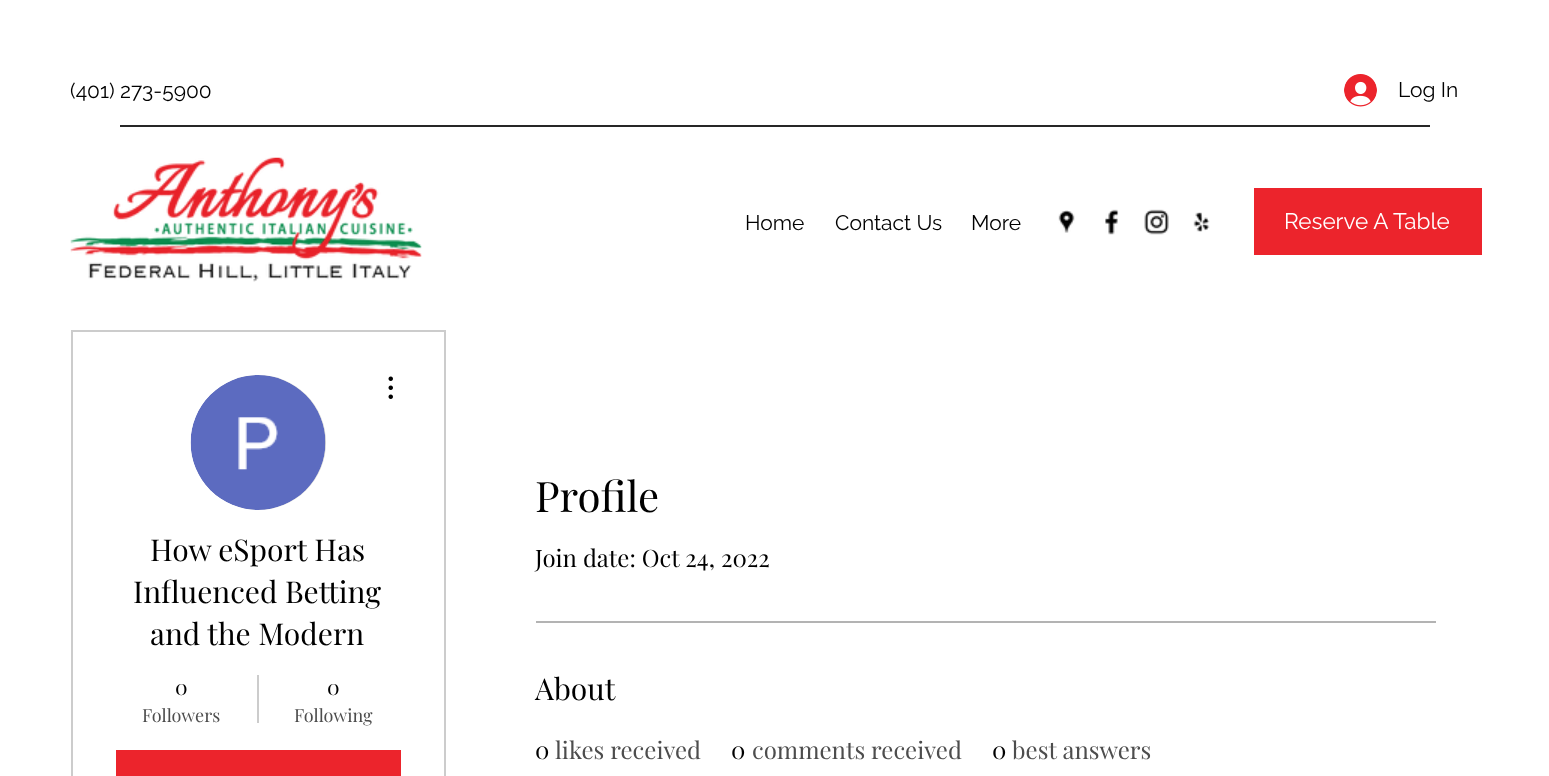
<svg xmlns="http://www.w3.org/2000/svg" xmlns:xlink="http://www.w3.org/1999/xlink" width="1549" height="776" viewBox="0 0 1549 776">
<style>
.cls-1{font:21px Raleway;fill:#000000}
.cls-2{font:22.5px Raleway;fill:#ffffff}
.cls-3{font:30px Playfair Display;fill:#000000}
.cls-4{font:21px Playfair Display;fill:#000000}
.cls-5{font:18px Playfair Display;fill:#4d4d4d}
.cls-6{font:42px Playfair Display;fill:#000000}
.cls-7{font:24px Playfair Display;fill:#000000}
.cls-8{font:24px Playfair Display;fill:#4d4d4d}
</style>
<rect width="100%" height="100%" fill="#ffffff"/>
<image xlink:href="image0.png" x="1344" y="74" width="33" height="33"/>
<rect fill="#262626" x="120" y="125" width="1310" height="2"/>
<image xlink:href="image1.png" x="70" y="157" width="352" height="125"/>
<image xlink:href="image2.png" x="1058" y="210" width="17" height="23"/>
<image xlink:href="image3.png" x="1105" y="209" width="14" height="26"/>
<image xlink:href="image4.png" x="1144" y="209" width="25" height="26"/>
<image xlink:href="image5.png" x="1193" y="212" width="17" height="20"/>
<rect fill="#ec242c" x="1254" y="188" width="228" height="67"/>
<rect fill="none" stroke="#cccccc" stroke-width="2" x="72" y="331" width="373" height="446"/>
<circle fill="#d8d8d8" cx="258.5" cy="442.5" r="67.5"/>
<image xlink:href="image6.png" x="190" y="375" width="136" height="135"/>
<image xlink:href="image7.png" x="388" y="376" width="5" height="23"/>
<rect fill="#cccccc" x="257" y="675" width="2" height="48"/>
<rect fill="#ec242c" x="116" y="750" width="285" height="26"/>
<rect fill="#b3b3b3" x="536" y="621" width="900" height="2"/>
<text class="cls-1" x="70" y="98">(401) 273-5900</text>
<text class="cls-1" x="1398" y="97">Log In</text>
<text class="cls-1" x="745" y="230">Home</text>
<text class="cls-1" x="835" y="230">Contact Us</text>
<text class="cls-1" x="971" y="230">More</text>
<text class="cls-2" x="1284" y="229">Reserve A Table</text>
<text class="cls-3" x="150" y="561">How eSport Has</text>
<text class="cls-3" x="133" y="603">Influenced Betting</text>
<text class="cls-3" x="150" y="645">and the Modern</text>
<text class="cls-4" x="175" y="695">0</text>
<text class="cls-5" x="142" y="722">Followers</text>
<text class="cls-4" x="327" y="695">0</text>
<text class="cls-5" x="294" y="722">Following</text>
<text class="cls-6" x="535" y="512">Profile</text>
<text class="cls-7" x="535" y="567">Join date: Oct 24, 2022</text>
<text class="cls-3" x="535" y="700">About</text>
<text class="cls-7" x="535" y="759">0</text>
<text class="cls-8" x="555" y="759">likes received</text>
<text class="cls-7" x="731" y="759">0</text>
<text class="cls-8" x="752" y="759">comments received</text>
<text class="cls-7" x="992" y="759">0</text>
<text class="cls-8" x="1012" y="759">best answers</text>
</svg>
